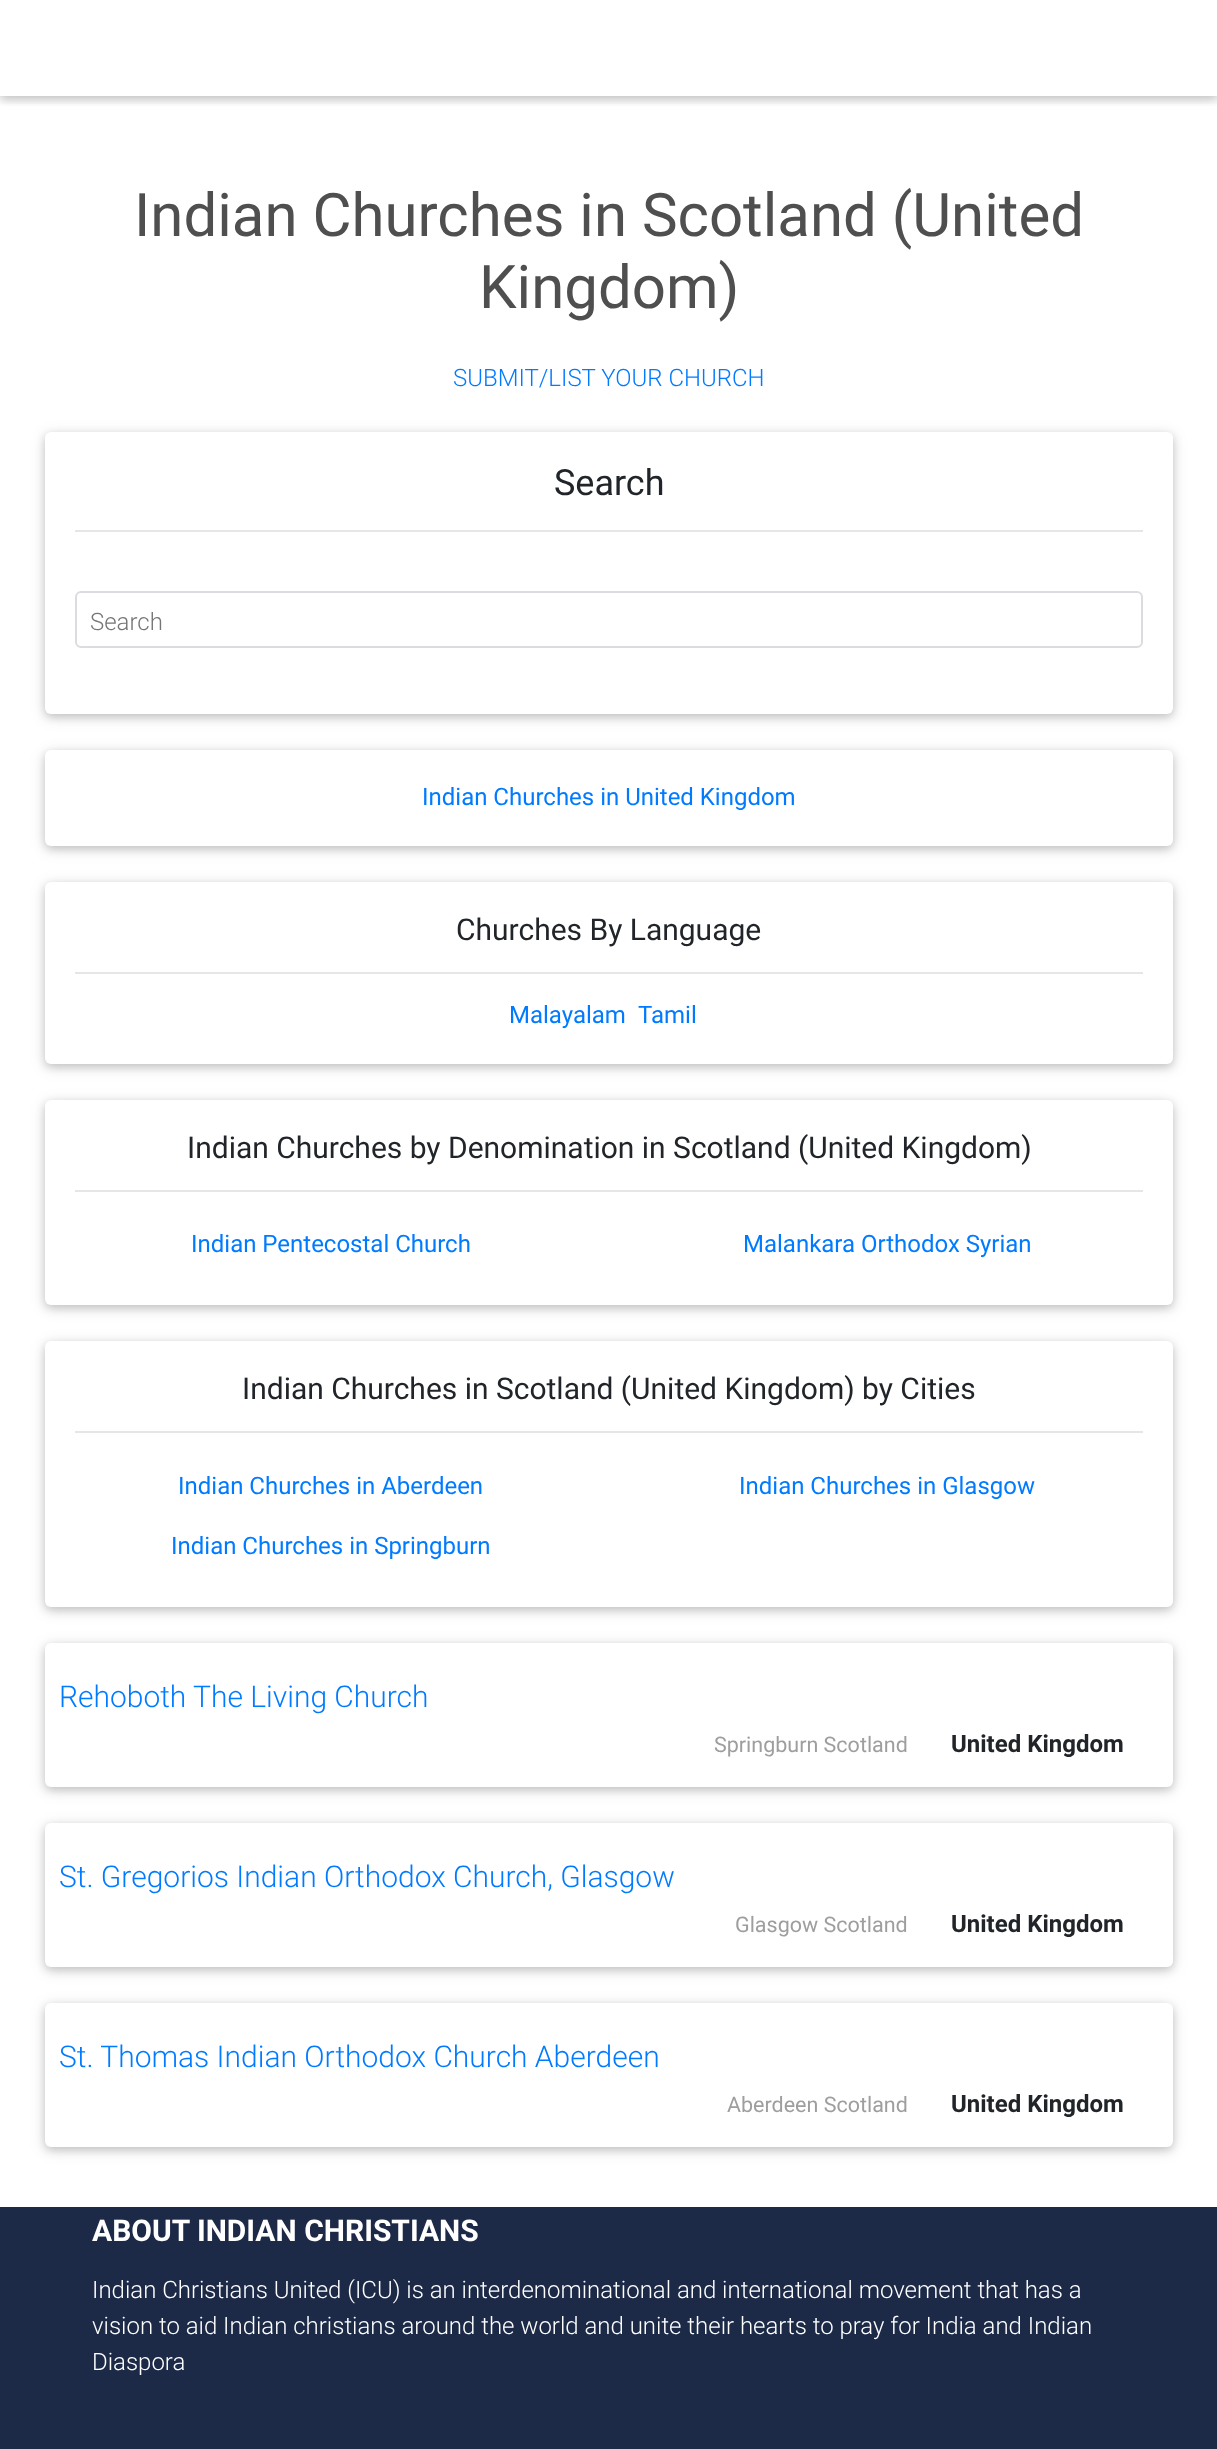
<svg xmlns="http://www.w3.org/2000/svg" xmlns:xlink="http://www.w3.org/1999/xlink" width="1217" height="2449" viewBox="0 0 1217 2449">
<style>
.cls-1{font:60px Roboto;fill:#4f4f4f}
.cls-2{font:300 24px Roboto;fill:#007bff}
.cls-3{font:36px Roboto;fill:#212529}
.cls-4{font:300 24px Roboto;fill:#757575}
.cls-5{font:24px Roboto;fill:#007bff}
.cls-6{font:30px Roboto;fill:#212529}
.cls-7{font:300 30px Roboto;fill:#007bff}
.cls-8{font:21.5px Roboto;fill:#9e9e9e}
.cls-9{font:bold 24px Roboto;fill:#212529}
.cls-10{font:bold 30px Roboto;fill:#ffffff}
.cls-11{font:300 24px Roboto;fill:#ffffff}
</style>
<defs>
<clipPath id="clip1"><rect x="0" y="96" width="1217" height="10"/></clipPath>
<clipPath id="clip2"><rect x="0" y="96" width="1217" height="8"/></clipPath>
</defs>
<rect width="100%" height="100%" fill="#ffffff"/>
<g clip-path="url(#clip1)">
<rect fill="#000000" fill-opacity="0.12" filter="blur(7.5px)" x="0" y="3" width="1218" height="96"/>
</g>
<g clip-path="url(#clip2)">
<rect fill="#000000" fill-opacity="0.16" filter="blur(4px)" x="0" y="3" width="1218" height="96"/>
</g>
<rect fill="#000000" fill-opacity="0.12" filter="blur(7.5px)" x="45" y="435" width="1128" height="282" rx="6"/>
<rect fill="#000000" fill-opacity="0.16" filter="blur(4px)" x="45" y="435" width="1128" height="282" rx="6"/>
<rect fill="#ffffff" x="45" y="432" width="1128" height="282" rx="6"/>
<rect fill="#e6e6e6" x="75" y="530" width="1068" height="2"/>
<rect fill="none" stroke="#dadce0" stroke-width="2" x="76" y="592" width="1066" height="55" rx="5"/>
<rect fill="#000000" fill-opacity="0.12" filter="blur(7.5px)" x="45" y="753" width="1128" height="96" rx="6"/>
<rect fill="#000000" fill-opacity="0.16" filter="blur(4px)" x="45" y="753" width="1128" height="96" rx="6"/>
<rect fill="#ffffff" x="45" y="750" width="1128" height="96" rx="6"/>
<rect fill="#000000" fill-opacity="0.12" filter="blur(7.5px)" x="45" y="885" width="1128" height="182" rx="6"/>
<rect fill="#000000" fill-opacity="0.16" filter="blur(4px)" x="45" y="885" width="1128" height="182" rx="6"/>
<rect fill="#ffffff" x="45" y="882" width="1128" height="182" rx="6"/>
<rect fill="#e6e6e6" x="75" y="972" width="1068" height="2"/>
<rect fill="#000000" fill-opacity="0.12" filter="blur(7.5px)" x="45" y="1103" width="1128" height="205" rx="6"/>
<rect fill="#000000" fill-opacity="0.16" filter="blur(4px)" x="45" y="1103" width="1128" height="205" rx="6"/>
<rect fill="#ffffff" x="45" y="1100" width="1128" height="205" rx="6"/>
<rect fill="#e6e6e6" x="75" y="1190" width="1068" height="2"/>
<rect fill="#000000" fill-opacity="0.12" filter="blur(7.5px)" x="45" y="1344" width="1128" height="266" rx="6"/>
<rect fill="#000000" fill-opacity="0.16" filter="blur(4px)" x="45" y="1344" width="1128" height="266" rx="6"/>
<rect fill="#ffffff" x="45" y="1341" width="1128" height="266" rx="6"/>
<rect fill="#e6e6e6" x="75" y="1431" width="1068" height="2"/>
<rect fill="#000000" fill-opacity="0.12" filter="blur(7.5px)" x="45" y="1646" width="1128" height="144" rx="6"/>
<rect fill="#000000" fill-opacity="0.16" filter="blur(4px)" x="45" y="1646" width="1128" height="144" rx="6"/>
<rect fill="#ffffff" x="45" y="1643" width="1128" height="144" rx="6"/>
<rect fill="#000000" fill-opacity="0.12" filter="blur(7.5px)" x="45" y="1826" width="1128" height="144" rx="6"/>
<rect fill="#000000" fill-opacity="0.16" filter="blur(4px)" x="45" y="1826" width="1128" height="144" rx="6"/>
<rect fill="#ffffff" x="45" y="1823" width="1128" height="144" rx="6"/>
<rect fill="#000000" fill-opacity="0.12" filter="blur(7.5px)" x="45" y="2006" width="1128" height="144" rx="6"/>
<rect fill="#000000" fill-opacity="0.16" filter="blur(4px)" x="45" y="2006" width="1128" height="144" rx="6"/>
<rect fill="#ffffff" x="45" y="2003" width="1128" height="144" rx="6"/>
<rect fill="#1c2a48" x="0" y="2207" width="1217" height="242"/>
<text class="cls-1" x="134" y="236">Indian Churches in Scotland (United</text>
<text class="cls-1" x="479" y="308">Kingdom)</text>
<text class="cls-2" x="453" y="386">SUBMIT/LIST YOUR CHURCH</text>
<text class="cls-3" x="554" y="495">Search</text>
<text class="cls-4" x="90" y="630">Search</text>
<text class="cls-5" x="422" y="805">Indian Churches in United Kingdom</text>
<text class="cls-6" x="456" y="940">Churches By Language</text>
<text class="cls-5" x="509" y="1023">Malayalam</text>
<text class="cls-5" x="638" y="1023">Tamil</text>
<text class="cls-6" x="187" y="1158">Indian Churches by Denomination in Scotland (United Kingdom)</text>
<text class="cls-5" x="191" y="1252">Indian Pentecostal Church</text>
<text class="cls-5" x="743" y="1252">Malankara Orthodox Syrian</text>
<text class="cls-6" x="242" y="1399">Indian Churches in Scotland (United Kingdom) by Cities</text>
<text class="cls-5" x="178" y="1494">Indian Churches in Aberdeen</text>
<text class="cls-5" x="739" y="1494">Indian Churches in Glasgow</text>
<text class="cls-5" x="171" y="1554">Indian Churches in Springburn</text>
<text class="cls-7" x="59" y="1707">Rehoboth The Living Church</text>
<text class="cls-8" x="714" y="1752">Springburn Scotland</text>
<text class="cls-9" x="951" y="1752">United Kingdom</text>
<text class="cls-7" x="59" y="1887">St. Gregorios Indian Orthodox Church, Glasgow</text>
<text class="cls-8" x="735" y="1932">Glasgow Scotland</text>
<text class="cls-9" x="951" y="1932">United Kingdom</text>
<text class="cls-7" x="59" y="2067">St. Thomas Indian Orthodox Church Aberdeen</text>
<text class="cls-8" x="727" y="2112">Aberdeen Scotland</text>
<text class="cls-9" x="951" y="2112">United Kingdom</text>
<text class="cls-10" x="92" y="2241">ABOUT INDIAN CHRISTIANS</text>
<text class="cls-11"><tspan x="92" y="2298">Indian Christians United (ICU) is an interdenominational and international movement that has a</tspan><tspan x="92" y="2334">vision to aid Indian christians around the world and unite their hearts to pray for India and Indian</tspan><tspan x="92" y="2370">Diaspora</tspan></text>
</svg>
